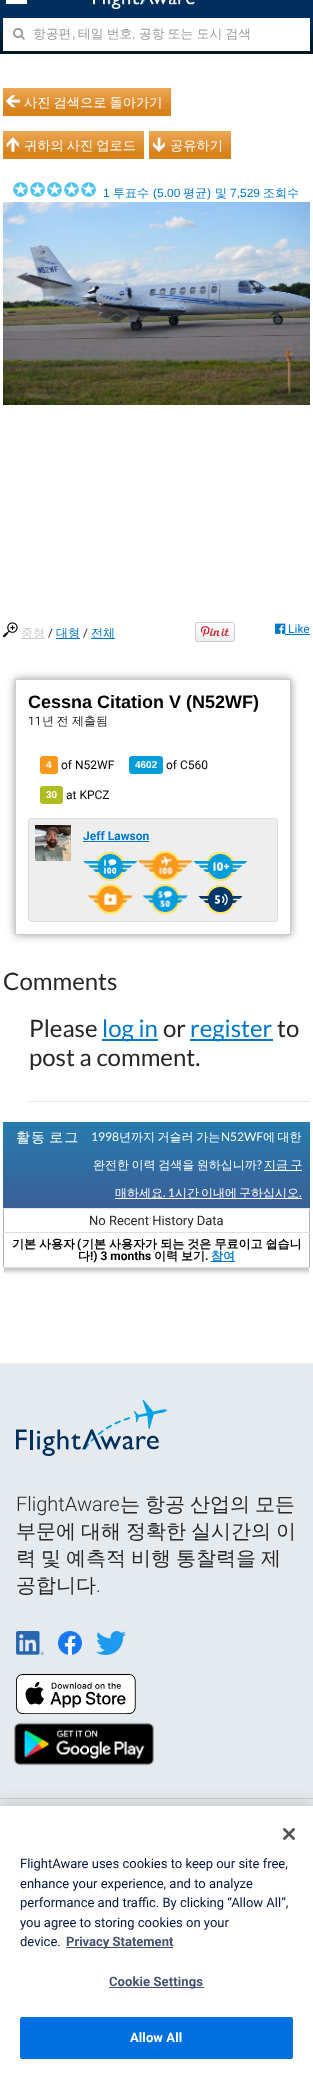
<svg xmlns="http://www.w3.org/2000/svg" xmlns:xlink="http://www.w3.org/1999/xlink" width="313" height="2075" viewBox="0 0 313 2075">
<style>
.cls-1{font:500 12.75px WenQuanYi Zen Hei;fill:#999999}
.cls-2{font:12.75px Liberation Sans;fill:#999999}
.cls-3{font:500 13.25px WenQuanYi Zen Hei;fill:#ffffff}
.cls-4{font:12px Liberation Sans;fill:#0077cc}
.cls-5{font:500 12px WenQuanYi Zen Hei;fill:#0077cc}
.cls-6{font:500 12px WenQuanYi Zen Hei;fill:#cccccc}
.cls-7{font:12px Roboto;fill:#272727}
.cls-8{font:12px Roboto;fill:#0077cc}
.cls-9{font:bold 18px Liberation Sans;fill:#000000}
.cls-10{font:500 12px WenQuanYi Zen Hei;fill:#272727}
.cls-11{font:bold 10px Liberation Sans;fill:#ffffff}
.cls-12{font:12px Roboto;fill:#000000}
.cls-13{font:bold 12px Roboto;fill:#0077cc}
.cls-14{font:24px Lato;fill:#272727}
.cls-15{font:24px Lato;fill:#0077cc}
.cls-16{font:500 14px WenQuanYi Zen Hei;letter-spacing:1px;fill:#ffffff}
.cls-17{font:12px Lato;fill:#ffffff}
.cls-18{font:500 12px WenQuanYi Zen Hei;fill:#ffffff}
.cls-19{font:13px Roboto;fill:#272727}
.cls-20{font:bold 12px WenQuanYi Zen Hei;fill:#000000}
.cls-21{font:bold 12px Roboto;fill:#000000}
.cls-22{font:bold 12px WenQuanYi Zen Hei;fill:#0077cc}
.cls-23{font:300 20px Roboto;fill:#272727}
.cls-24{font:500 20px WenQuanYi Zen Hei;fill:#272727}
.cls-25{font:13px Roboto;fill:#00153d}
.cls-26{font:bold 13px Roboto;fill:#42526f}
.cls-27{font:bold 13px Roboto;letter-spacing:0.1px;fill:#42526f}
.cls-28{font:bold 13px Roboto;letter-spacing:0.1px;fill:#ffffff}
</style>
<defs>
<linearGradient id="g1" gradientUnits="userSpaceOnUse" x1="157" y1="-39" x2="157" y2="54"><stop offset="0" stop-color="#002f5d"/><stop offset="0.6" stop-color="#002f5d"/><stop offset="1" stop-color="#021624"/></linearGradient>
<clipPath id="clip1"><path d="M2 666H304V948H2ZM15 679H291V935H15Z" clip-rule="evenodd"/></clipPath>
<linearGradient id="g2" gradientUnits="userSpaceOnUse" x1="3" y1="1122" x2="3" y2="1208"><stop offset="0" stop-color="#267bae"/><stop offset="1" stop-color="#3a5f97"/></linearGradient>
</defs>
<rect width="100%" height="100%" fill="#ffffff"/>
<rect fill="#888888" filter="blur(0.5px)" x="1" y="-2" width="311" height="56"/>
<rect fill="url(#g1)" x="0" y="0" width="313" height="54"/>
<rect fill="#ffffff" x="6" y="0" width="21" height="4"/>
<image xlink:href="image0.png" x="93" y="0" width="102" height="9"/>
<rect fill="#ffffff" x="3" y="18" width="307" height="33"/>
<image xlink:href="image1.png" x="13" y="28" width="12" height="12"/>
<rect fill="#ffffff" x="3" y="54" width="307" height="1"/>
<rect fill="#eda653" x="3" y="88" width="168" height="2"/>
<image xlink:href="image2.png" x="3" y="90" width="168" height="26"/>
<image xlink:href="image3.png" x="6" y="95" width="14" height="13"/>
<rect fill="#eda653" x="3" y="131" width="141" height="2"/>
<image xlink:href="image4.png" x="3" y="133" width="141" height="26"/>
<image xlink:href="image5.png" x="6" y="137" width="13" height="15"/>
<rect fill="#eda653" x="149" y="131" width="82" height="2"/>
<image xlink:href="image6.png" x="149" y="133" width="82" height="26"/>
<image xlink:href="image7.png" x="152" y="137" width="13" height="15"/>
<image xlink:href="image8.png" x="13" y="182" width="15" height="15"/>
<image xlink:href="image8.png" x="30" y="182" width="15" height="15"/>
<image xlink:href="image8.png" x="47" y="182" width="15" height="15"/>
<image xlink:href="image8.png" x="64" y="182" width="15" height="15"/>
<image xlink:href="image8.png" x="81" y="182" width="15" height="15"/>
<image xlink:href="image9.png" x="3" y="202" width="307" height="203"/>
<image xlink:href="image10.png" x="3" y="622" width="15" height="15"/>
<rect fill="#cccccc" x="21" y="638" width="24" height="1"/>
<rect fill="#0077cc" x="56" y="638" width="24" height="1"/>
<rect fill="#0077cc" x="91" y="638" width="24" height="1"/>
<image xlink:href="image11.png" x="195" y="622" width="40" height="20"/>
<image xlink:href="image12.png" x="275" y="623" width="11" height="11"/>
<rect fill="#0077cc" x="285" y="634" width="25" height="1"/>
<g clip-path="url(#clip1)">
<rect fill="#999999" filter="blur(4px)" x="15" y="679" width="276" height="256"/>
</g>
<rect fill="none" stroke="#cccccc" x="15.5" y="679.5" width="275" height="255"/>
<rect fill="#f8981d" x="40" y="756" width="18" height="18" rx="3"/>
<rect fill="#009ddc" x="129" y="756" width="34" height="18" rx="3"/>
<rect fill="#afbd21" x="40" y="786" width="23" height="18" rx="3"/>
<rect fill="#eeeeee" stroke="#dddddd" x="28.5" y="818.5" width="249" height="103" rx="2.5"/>
<image xlink:href="image13.png" x="35" y="825" width="36" height="36"/>
<rect fill="#0077cc" x="83" y="841" width="66" height="1"/>
<image xlink:href="image14.png" x="83" y="852" width="55" height="29"/>
<image xlink:href="image15.png" x="138" y="851" width="55" height="30"/>
<image xlink:href="image16.png" x="193" y="852" width="55" height="29"/>
<image xlink:href="image17.png" x="87" y="884" width="46" height="30"/>
<image xlink:href="image18.png" x="142" y="884" width="46" height="30"/>
<image xlink:href="image19.png" x="198" y="885" width="45" height="29"/>
<rect fill="#e8e8e8" x="29" y="1101" width="281" height="1"/>
<rect fill="#0077cc" x="102" y="1039" width="56" height="2"/>
<rect fill="#0077cc" x="190" y="1039" width="83" height="2"/>
<rect fill="url(#g2)" x="3" y="1122" width="307" height="86"/>
<rect fill="#ffffff" x="264" y="1170" width="38" height="1"/>
<rect fill="#ffffff" x="115" y="1198" width="187" height="1"/>
<rect fill="#b2b2b2" x="309" y="1208" width="1" height="60"/>
<rect fill="#b2b2b2" x="3" y="1208" width="1" height="60"/>
<rect fill="#e5e5e4" x="3" y="1208" width="307" height="1"/>
<rect fill="#dfdfdf" x="3" y="1232" width="307" height="1"/>
<rect fill="#dfdfdf" x="3" y="1267" width="307" height="1"/>
<rect fill="#0077cc" x="211" y="1261" width="24" height="1"/>
<image xlink:href="image20.png" x="4" y="1268" width="305" height="7"/>
<rect fill="#e5eaef" x="0" y="1363" width="313" height="443"/>
<image xlink:href="image21.png" x="16" y="1400" width="151" height="56"/>
<image xlink:href="image22.png" x="16" y="1631" width="28" height="24"/>
<image xlink:href="image23.png" x="58" y="1631" width="24" height="24"/>
<image xlink:href="image24.png" x="96" y="1631" width="30" height="24"/>
<image xlink:href="image25.png" x="16" y="1674" width="120" height="40"/>
<image xlink:href="image26.png" x="13" y="1722" width="142" height="44"/>
<rect fill="#cccccc" x="0" y="1798" width="313" height="1"/>
<rect fill="#000000" fill-opacity="0.2" filter="blur(9px)" x="0" y="1806" width="313" height="269"/>
<rect fill="#ffffff" x="0" y="1806" width="313" height="269"/>
<image xlink:href="image27.png" x="283" y="1828" width="12" height="12"/>
<rect fill="#42526f" x="66" y="1947" width="107" height="1"/>
<rect fill="#42526f" x="109" y="1987" width="95" height="1"/>
<rect fill="#0070e0" stroke="#0070e0" x="20.5" y="2017.5" width="272" height="41" rx="1.5"/>
<text class="cls-1" x="33" y="38">항공편</text>
<text class="cls-2" x="72" y="38">,</text>
<text class="cls-1" x="78" y="38" word-spacing="-0.5">테일 번호</text>
<text class="cls-2" x="132" y="38">,</text>
<text class="cls-1" x="139" y="38" word-spacing="-0.5">공항 또는 도시 검색</text>
<text class="cls-3" x="24" y="107" word-spacing="-1">사진 검색으로 돌아가기</text>
<text class="cls-3" x="24" y="150" word-spacing="-1">귀하의 사진 업로드</text>
<text class="cls-3" x="170" y="150">공유하기</text>
<text class="cls-4" x="103" y="197">1</text>
<text class="cls-5" x="113" y="197">투표수</text>
<text class="cls-4" x="153" y="197">(5.00</text>
<text class="cls-5" x="183" y="197">평균</text>
<text class="cls-4" x="207" y="197">)</text>
<text class="cls-5" x="215" y="197">및</text>
<text class="cls-4" x="230" y="197">7,529</text>
<text class="cls-5" x="263" y="197">조회수</text>
<text class="cls-6" x="21" y="637">중형</text>
<text class="cls-7" x="48" y="637">/</text>
<text class="cls-5" x="56" y="637">대형</text>
<text class="cls-7" x="83" y="637">/</text>
<text class="cls-5" x="91" y="637">전체</text>
<text class="cls-8" x="288" y="633">Like</text>
<text class="cls-9" x="28" y="708">Cessna Citation V (N52WF)</text>
<text class="cls-7" x="28" y="725">11</text>
<text class="cls-10" x="42" y="725" word-spacing="-1">년 전</text>
<text class="cls-10" x="72" y="725">제출됨</text>
<text class="cls-11" x="46" y="768">4</text>
<text class="cls-12" x="61" y="769">of N52WF</text>
<text class="cls-11" x="135" y="768">4602</text>
<text class="cls-12" x="166" y="769">of C560</text>
<text class="cls-11" x="46" y="798">30</text>
<text class="cls-12" x="66" y="799">at KPCZ</text>
<text class="cls-13" x="83" y="840">Jeff Lawson</text>
<text class="cls-14" x="3" y="990">Comments</text>
<text class="cls-14" x="29" y="1037">Please</text>
<text class="cls-15" x="102" y="1037">log in</text>
<text class="cls-14" x="163" y="1037">or</text>
<text class="cls-15" x="190" y="1037">register</text>
<text class="cls-14" x="277" y="1037">to</text>
<text class="cls-14" x="29" y="1066">post a comment.</text>
<text class="cls-16" x="16" y="1142" word-spacing="-2">활동 로그</text>
<text class="cls-17" x="91" y="1141">1998</text>
<text class="cls-18" x="119" y="1141" word-spacing="-1">년까지 거슬러 가는</text>
<text class="cls-17" x="221" y="1141">N52WF</text>
<text class="cls-18" x="263" y="1141" word-spacing="-1">에 대한</text>
<text class="cls-18" x="93" y="1169" word-spacing="-1">완전한 이력 검색을 원하십니까</text>
<text class="cls-17" x="257" y="1169">?</text>
<text class="cls-18" x="264" y="1169" word-spacing="-1">지금 구</text>
<text class="cls-18" x="115" y="1197">매하세요</text>
<text class="cls-17" x="163" y="1197">. 1</text>
<text class="cls-18" x="175" y="1197">시간</text>
<text class="cls-18" x="201" y="1197">이내에</text>
<text class="cls-18" x="239" y="1197">구하십시오</text>
<text class="cls-17" x="299" y="1197">.</text>
<text class="cls-19" x="89" y="1225">No Recent History Data</text>
<text class="cls-20" x="12" y="1248" word-spacing="-0.5">기본 사용자</text>
<text class="cls-21" x="77" y="1248">(</text>
<text class="cls-20" x="82" y="1248" word-spacing="-0.5">기본 사용자가 되는 것은 무료이고 쉽습니</text>
<text class="cls-20" x="78" y="1260">다</text>
<text class="cls-21" x="90" y="1260">!) 3 months</text>
<text class="cls-20" x="154" y="1260">이력</text>
<text class="cls-20" x="181" y="1260">보기</text>
<text class="cls-21" x="205" y="1260">.</text>
<text class="cls-22" x="211" y="1260">참여</text>
<text class="cls-23" x="16" y="1511">FlightAware</text>
<text class="cls-24" x="120" y="1511" word-spacing="-1">는 항공 산업의 모든</text>
<text class="cls-24"><tspan x="16" y="1538" word-spacing="-1">부문에 대해 정확한 실시간의 이</tspan><tspan x="16" y="1565" word-spacing="-1">력 및 예측적 비행 통찰력을 제</tspan><tspan x="16" y="1592">공합니다</tspan></text>
<text class="cls-23" x="96" y="1592">.</text>
<text class="cls-25"><tspan x="20" y="1868">FlightAware uses cookies to keep our site free,</tspan><tspan x="20" y="1888">enhance your experience, and to analyze</tspan><tspan x="20" y="1907">performance and traffic. By clicking “Allow All”,</tspan><tspan x="20" y="1927">you agree to storing cookies on your</tspan><tspan x="20" y="1946">device.</tspan></text>
<text class="cls-26" x="66" y="1946">Privacy Statement</text>
<text class="cls-27" x="109" y="1986">Cookie Settings</text>
<text class="cls-28" x="130" y="2042">Allow All</text>
</svg>
